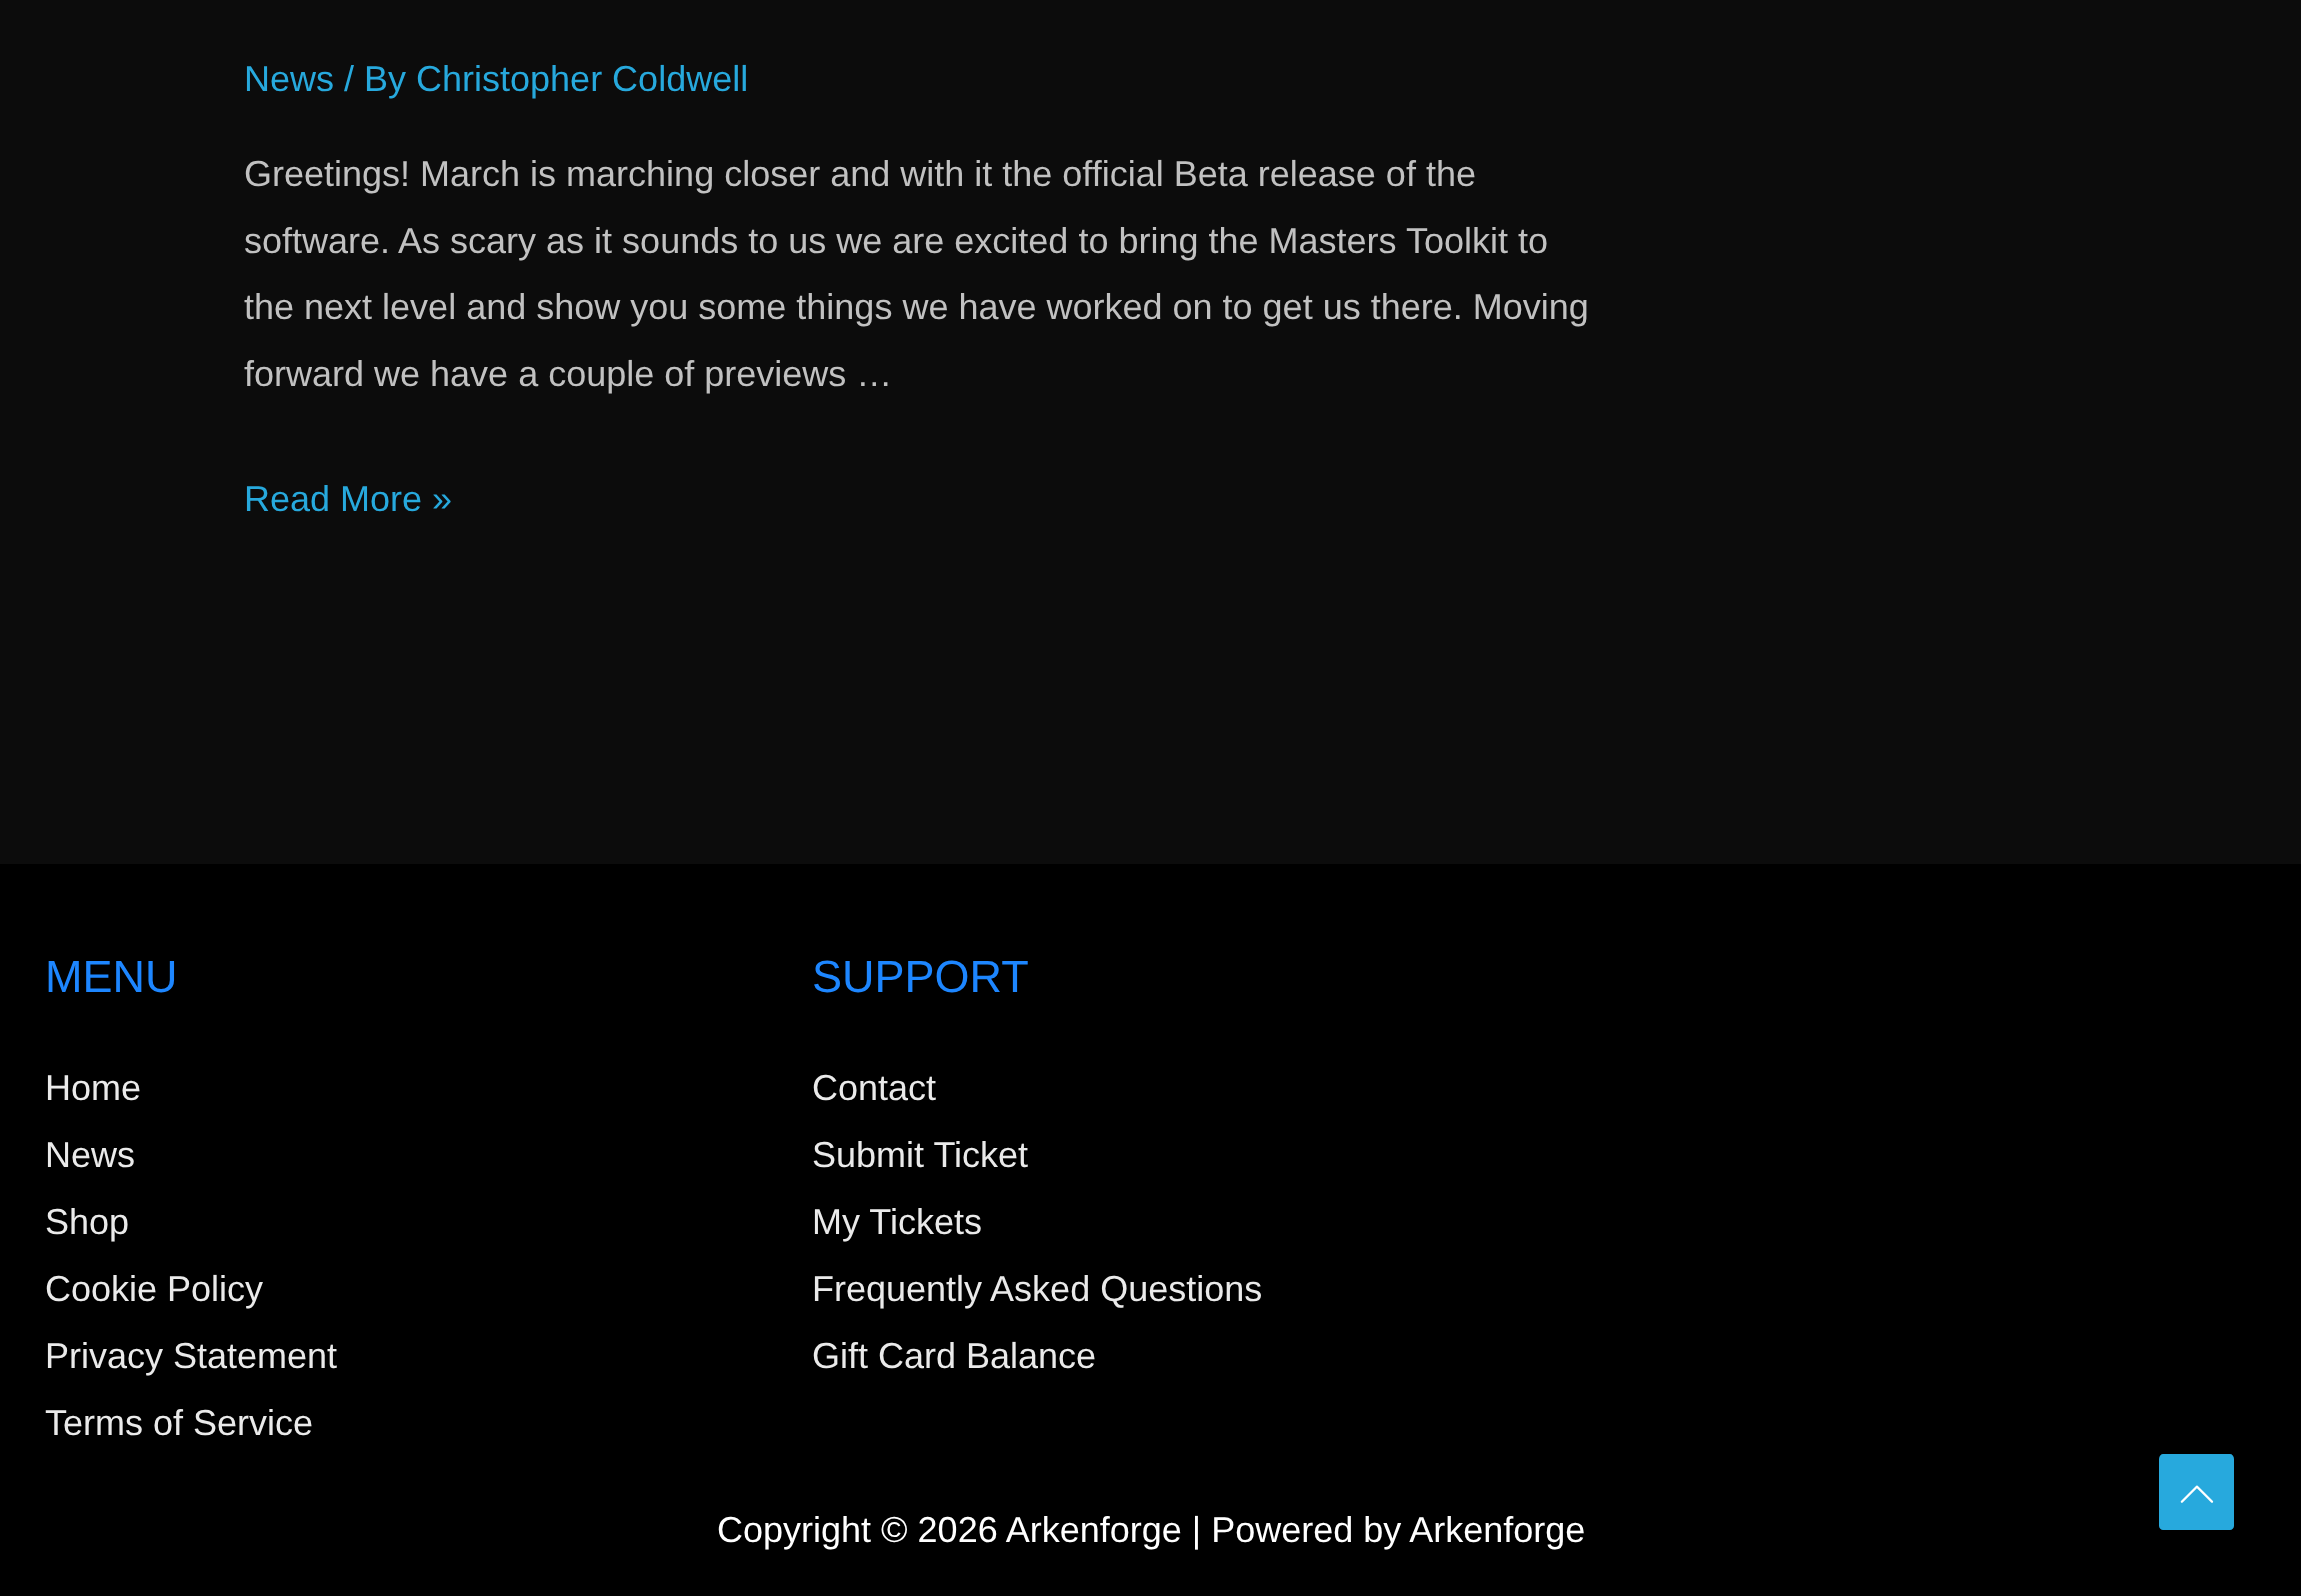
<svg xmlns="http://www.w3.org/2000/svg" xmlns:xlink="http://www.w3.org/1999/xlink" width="2301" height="1596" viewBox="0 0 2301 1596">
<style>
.cls-1{font:36px Liberation Sans;fill:#27a9dd}
.cls-2{font:36px Liberation Sans;fill:#c1c1c1}
.cls-3{font:45px Liberation Sans;fill:#1d86ff}
.cls-4{font:36px Liberation Sans;fill:#eaeaea}
.cls-5{font:36px Liberation Sans;fill:#ffffff}
</style>
<rect width="100%" height="100%" fill="#0c0c0c"/>
<rect fill="#000000" x="0" y="864" width="2301" height="732"/>
<path fill="#27a9dd" d="M2230 1530H2163C2161 1530 2159 1528 2159 1526V1459C2159 1456 2161 1454 2163 1454H2230C2232 1454 2234 1456 2234 1459V1526C2234 1528 2232 1530 2230 1530Z"/>
<image xlink:href="image0.png" x="2180" y="1485" width="34" height="18"/>
<text class="cls-1" x="244" y="91">News / By Christopher Coldwell</text>
<text class="cls-2"><tspan x="244" y="186">Greetings! March is marching closer and with it the official Beta release of the</tspan><tspan x="244" y="253">software. As scary as it sounds to us we are excited to bring the Masters Toolkit to</tspan><tspan x="244" y="319">the next level and show you some things we have worked on to get us there. Moving</tspan><tspan x="244" y="386">forward we have a couple of previews …</tspan></text>
<text class="cls-1" x="244" y="511">Read More »</text>
<text class="cls-3" x="45" y="992">MENU</text>
<text class="cls-4"><tspan x="45" y="1100">Home</tspan><tspan x="45" y="1167">News</tspan><tspan x="45" y="1234">Shop</tspan><tspan x="45" y="1301">Cookie Policy</tspan><tspan x="45" y="1368">Privacy Statement</tspan><tspan x="45" y="1435">Terms of Service</tspan></text>
<text class="cls-3" x="812" y="992">SUPPORT</text>
<text class="cls-4"><tspan x="812" y="1100">Contact</tspan><tspan x="812" y="1167">Submit Ticket</tspan><tspan x="812" y="1234">My Tickets</tspan><tspan x="812" y="1301">Frequently Asked Questions</tspan><tspan x="812" y="1368">Gift Card Balance</tspan></text>
<text class="cls-5" x="717" y="1542">Copyright © 2026 Arkenforge | Powered by Arkenforge</text>
</svg>
